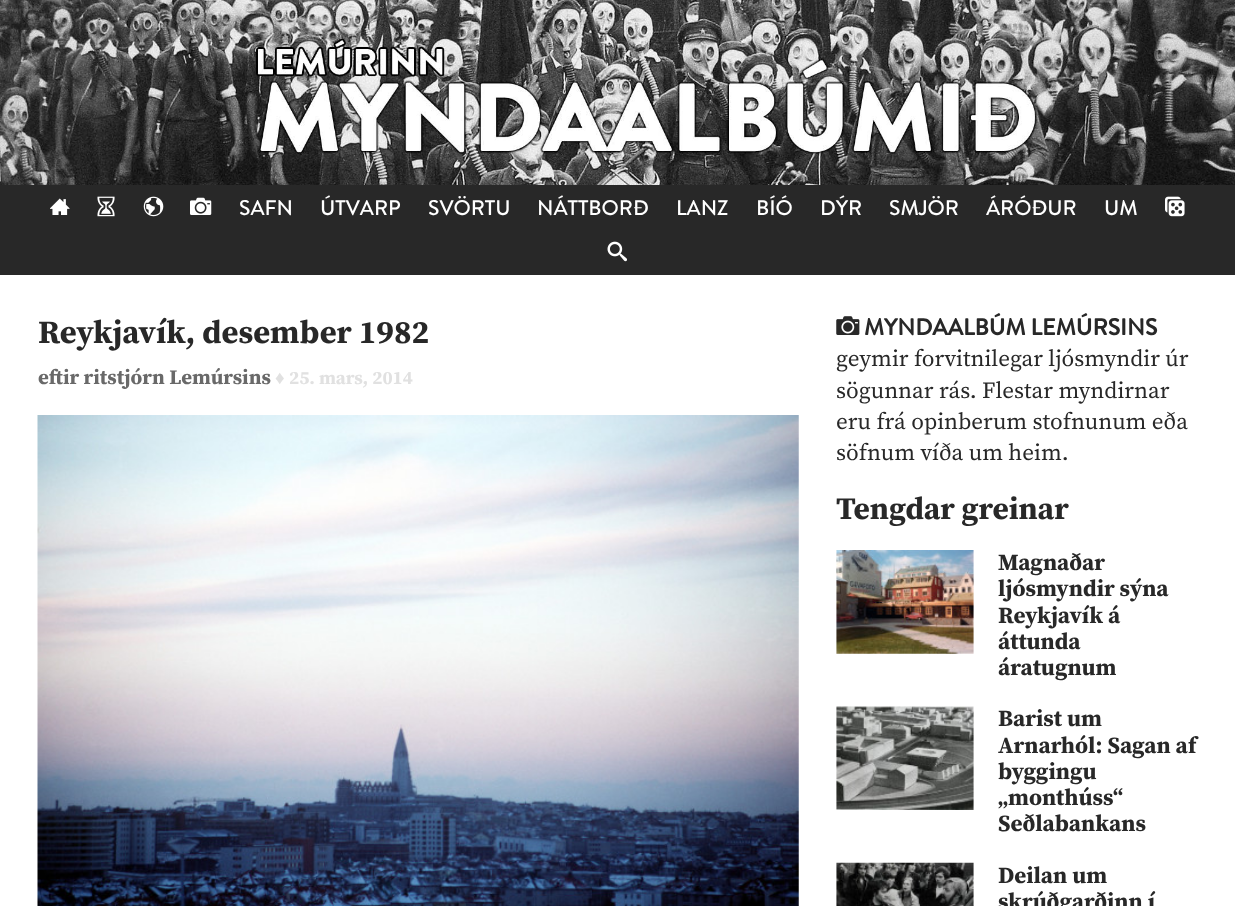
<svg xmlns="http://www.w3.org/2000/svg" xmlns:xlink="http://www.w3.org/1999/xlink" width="1235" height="906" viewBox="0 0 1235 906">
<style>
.cls-1{font:500 21.25px Brandon Grotesque;fill:#ffffff}
.cls-2{font:bold 32.5px Source Serif Pro;fill:#282828}
.cls-3{font:bold 20.75px Source Serif Pro;fill:#696969}
.cls-4{font:bold 18.75px Liberation Serif;fill:#e1e1e1}
.cls-5{font:bold 18.75px Source Serif Pro;fill:#e1e1e1}
.cls-6{font:bold 23.1px Brandon Grotesque;fill:#282828}
.cls-7{font:23.1px Source Serif Pro;fill:#282828}
.cls-8{font:bold 31.25px Source Serif Pro;fill:#282828}
.cls-9{font:bold 23.1px Source Serif Pro;fill:#282828}
</style>
<rect width="100%" height="100%" fill="#ffffff"/>
<image xlink:href="image0.png" x="0" y="0" width="1235" height="185"/>
<rect fill="#282828" x="0" y="185" width="1235" height="90"/>
<image xlink:href="image1.png" x="50" y="198" width="20" height="17"/>
<image xlink:href="image2.png" x="97" y="196" width="18" height="21"/>
<image xlink:href="image3.png" x="143" y="196" width="21" height="21"/>
<image xlink:href="image4.png" x="190" y="197" width="22" height="18"/>
<image xlink:href="image5.png" x="1165" y="196" width="20" height="21"/>
<image xlink:href="image6.png" x="607" y="241" width="20" height="21"/>
<image xlink:href="image7.png" x="37" y="415" width="762" height="491"/>
<image xlink:href="image8.png" x="836" y="316" width="24" height="19"/>
<image xlink:href="image9.png" x="836" y="550" width="138" height="104"/>
<image xlink:href="image10.png" x="836" y="706" width="138" height="104"/>
<image xlink:href="image11.png" x="836" y="862" width="138" height="44"/>
<text class="cls-1" x="239" y="215">SAFN</text>
<text class="cls-1" x="320" y="215">ÚTVARP</text>
<text class="cls-1" x="428" y="215">SVÖRTU</text>
<text class="cls-1" x="537" y="215">NÁTTBORÐ</text>
<text class="cls-1" x="676" y="215">LANZ</text>
<text class="cls-1" x="756" y="215">BÍÓ</text>
<text class="cls-1" x="820" y="215">DÝR</text>
<text class="cls-1" x="889" y="215">SMJÖR</text>
<text class="cls-1" x="986" y="215">ÁRÓÐUR</text>
<text class="cls-1" x="1104" y="215">UM</text>
<text class="cls-2" x="38" y="343">Reykjavík, desember 1982</text>
<text class="cls-3" x="38" y="384">eftir ritstjórn Lemúrsins</text>
<text class="cls-4" x="275" y="384">♦</text>
<text class="cls-5" x="289" y="384">25. mars, 2014</text>
<text class="cls-6" x="864" y="335">MYNDAALBÚM LEMÚRSINS</text>
<text class="cls-7"><tspan x="836" y="366">geymir forvitnilegar ljósmyndir úr</tspan><tspan x="836" y="398">sögunnar rás. Flestar myndirnar</tspan><tspan x="836" y="429">eru frá opinberum stofnunum eða</tspan><tspan x="836" y="460">söfnum víða um heim.</tspan></text>
<text class="cls-8" x="836" y="519">Tengdar greinar</text>
<text class="cls-9"><tspan x="998" y="570">Magnaðar</tspan><tspan x="998" y="596">ljósmyndir sýna</tspan><tspan x="998" y="623">Reykjavík á</tspan><tspan x="998" y="649">áttunda</tspan><tspan x="998" y="675">áratugnum</tspan></text>
<text class="cls-9"><tspan x="998" y="726">Barist um</tspan><tspan x="998" y="753">Arnarhól: Sagan af</tspan><tspan x="998" y="779">byggingu</tspan><tspan x="998" y="805">„monthúss“</tspan><tspan x="998" y="831">Seðlabankans</tspan></text>
<text class="cls-9"><tspan x="998" y="883">Deilan um</tspan><tspan x="998" y="909">skrúðgarðinn í</tspan></text>
</svg>
